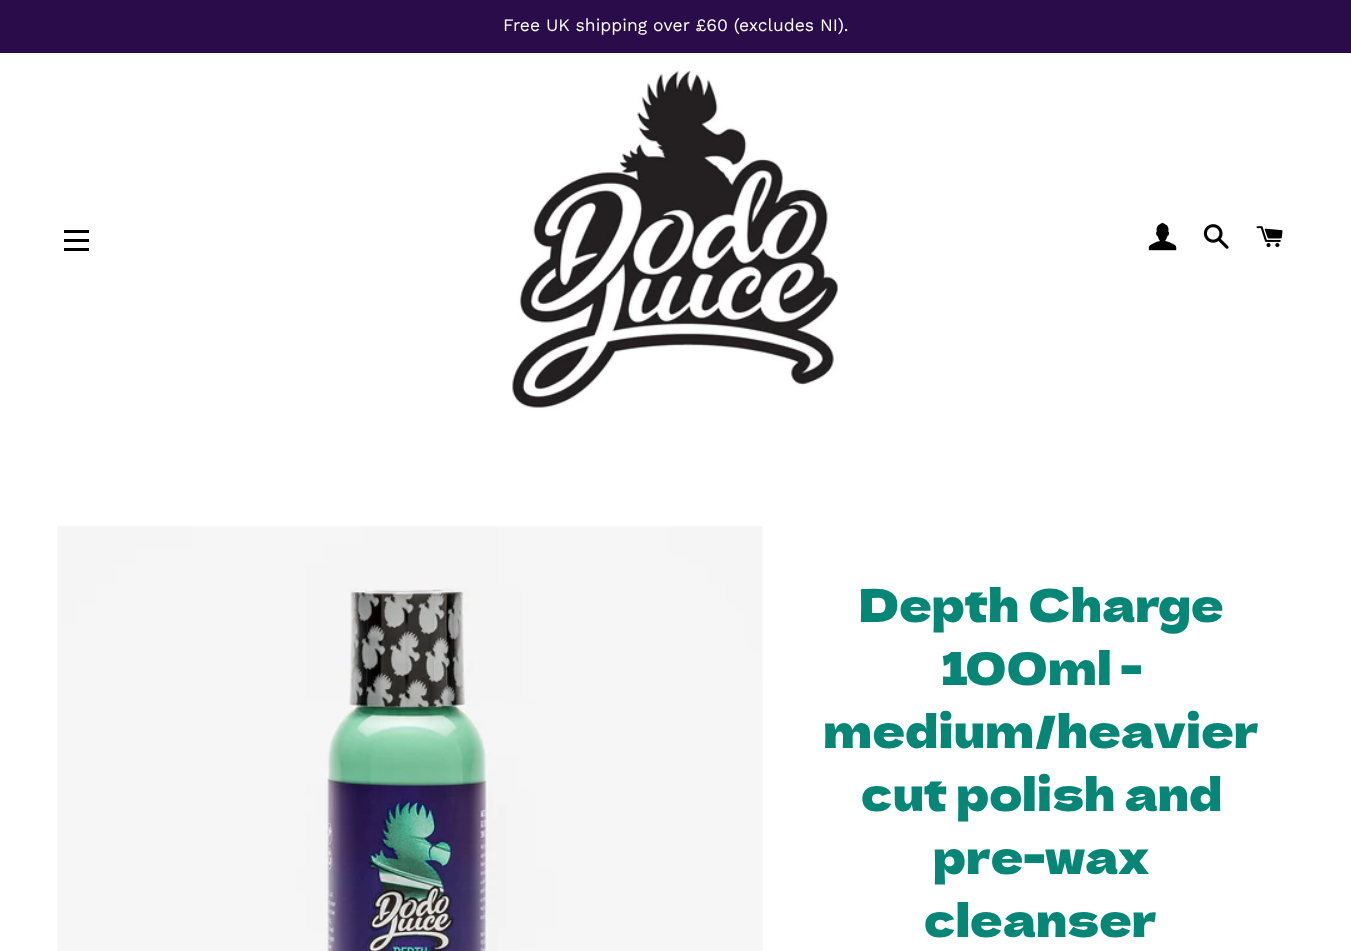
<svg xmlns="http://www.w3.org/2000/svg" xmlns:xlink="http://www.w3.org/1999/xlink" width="1351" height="951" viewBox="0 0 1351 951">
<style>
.cls-1{font:17.5px Work Sans;fill:#ffffff}
.cls-2{font:45px Dela Gothic One;fill:#058677}
</style>
<rect width="100%" height="100%" fill="#ffffff"/>
<rect fill="#290c49" x="0" y="0" width="1351" height="53"/>
<rect fill="#000000" x="64" y="230" width="25" height="3"/>
<rect fill="#000000" x="64" y="239" width="25" height="3"/>
<rect fill="#000000" x="64" y="248" width="25" height="3"/>
<image xlink:href="image0.png" x="512" y="71" width="326" height="337"/>
<image xlink:href="image1.png" x="1148" y="222" width="29" height="29"/>
<image xlink:href="image2.png" x="1203" y="224" width="26" height="25"/>
<image xlink:href="image3.png" x="1256" y="226" width="27" height="22"/>
<image xlink:href="image4.png" x="57" y="526" width="706" height="425"/>
<text class="cls-1" x="503" y="31">Free UK shipping over £60 (excludes NI).</text>
<text class="cls-2" x="859" y="622">Depth Charge</text>
<text class="cls-2" x="941" y="685">100ml -</text>
<text class="cls-2" x="823" y="748">medium/heavier</text>
<text class="cls-2" x="861" y="811">cut polish and</text>
<text class="cls-2" x="933" y="874">pre-wax</text>
<text class="cls-2" x="924" y="937">cleanser</text>
</svg>
